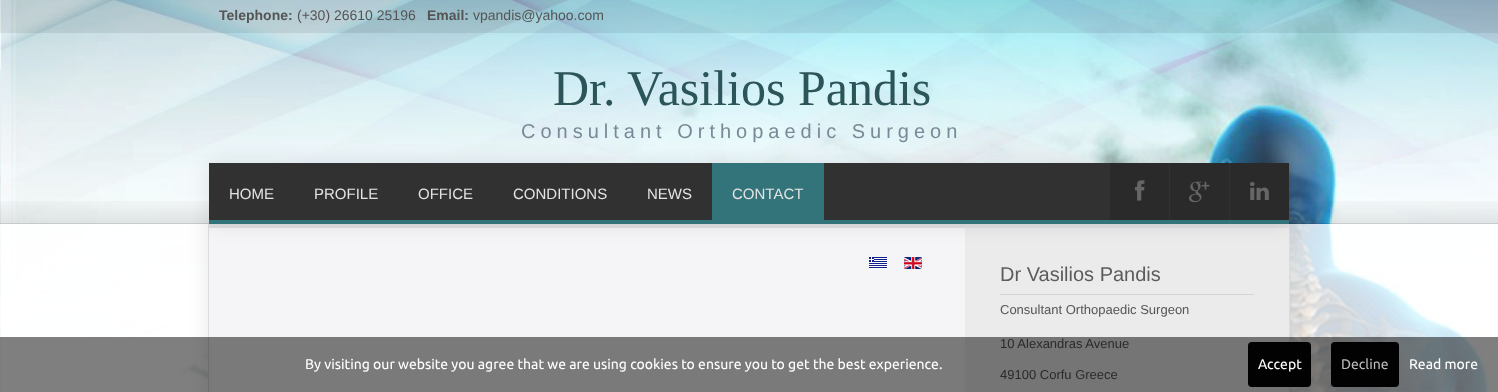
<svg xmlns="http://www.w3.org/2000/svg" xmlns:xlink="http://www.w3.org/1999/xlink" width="1498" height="392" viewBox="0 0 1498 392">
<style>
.cls-1{font:bold 14px Liberation Sans;fill:#555555}
.cls-2{font:14px Liberation Sans;fill:#555555}
.cls-3{font:50px Liberation Serif;fill:#2c5559}
.cls-4{font:20px Liberation Sans;letter-spacing:5px;fill:#788a95}
.cls-5{font:15px Liberation Sans;fill:#e3e3e3}
.cls-6{font:20px Liberation Sans;fill:#5c5c5c}
.cls-7{font:13px Liberation Sans;fill:#555555}
.cls-8{font:14px Ubuntu;fill:#ffffff}
.cls-9{font:14px Ubuntu;fill:#bababa}
</style>
<defs>
<linearGradient id="g1" gradientUnits="userSpaceOnUse" x1="749" y1="224" x2="749" y2="163"><stop offset="0" stop-color="#000000" stop-opacity="0.1"/><stop offset="0.49" stop-color="#000000" stop-opacity="0"/><stop offset="1" stop-color="#000000" stop-opacity="0"/></linearGradient>
</defs>
<rect width="100%" height="100%" fill="#ffffff"/>
<image xlink:href="image0.png" x="0" y="0" width="1498" height="392"/>
<rect fill="#f0f0f0" fill-opacity="0.1" x="1" y="0" width="1497" height="163"/>
<rect fill="#000000" fill-opacity="0.08" x="0" y="0" width="1498" height="33"/>
<rect fill="#ffffff" fill-opacity="0.8" x="0" y="224" width="1498" height="168"/>
<rect fill="#000000" fill-opacity="0.1" filter="blur(10px)" x="208" y="224" width="1082" height="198"/>
<rect fill="#f0f0f0" fill-opacity="0.1" x="451" y="163" width="885" height="61"/>
<rect fill="url(#g1)" x="0" y="201" width="1498" height="23"/>
<rect fill="#000000" fill-opacity="0.1" x="0" y="223" width="1498" height="1"/>
<rect fill="#f5f4f6" x="208" y="224" width="1082" height="168"/>
<path fill="#dfdee0" d="M208 224H1290L1289 228H209Z"/>
<path fill="#000000" fill-opacity="0.1" d="M1290 224V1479H1289V228Z"/>
<path fill="#000000" fill-opacity="0.1" d="M208 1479V224L209 228V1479Z"/>
<rect fill="#ebebeb" x="965" y="228" width="324" height="164"/>
<rect fill="#000000" fill-opacity="0.1" filter="blur(10px)" x="209" y="163" width="1080" height="61"/>
<rect fill="#313131" x="209" y="163" width="1021" height="57"/>
<rect fill="#33747a" x="209" y="220" width="1080" height="4"/>
<rect fill="#33747a" x="712" y="163" width="112" height="57"/>
<rect fill="#2a2a2a" x="1110" y="163" width="59" height="57"/>
<image xlink:href="image1.png" x="1135" y="180" width="10" height="21"/>
<rect fill="#2a2a2a" x="1170" y="163" width="59" height="57"/>
<image xlink:href="image2.png" x="1189" y="181" width="21" height="22"/>
<rect fill="#2a2a2a" x="1230" y="163" width="59" height="57"/>
<image xlink:href="image3.png" x="1250" y="182" width="19" height="18"/>
<image xlink:href="image4.png" x="869" y="257" width="18" height="12"/>
<image xlink:href="image5.png" x="904" y="257" width="18" height="12"/>
<rect fill="#d4d4d4" x="1000" y="294" width="254" height="1"/>
<text class="cls-1" x="219" y="20">Telephone:</text>
<text class="cls-2" x="297" y="20">(+30) 26610 25196</text>
<text class="cls-1" x="427" y="20">Email:</text>
<text class="cls-2" x="473" y="20">vpandis@yahoo.com</text>
<text class="cls-3" x="553" y="105">Dr. Vasilios Pandis</text>
<text class="cls-4" x="521" y="138">Consultant Orthopaedic Surgeon</text>
<text class="cls-5" x="229" y="199">HOME</text>
<text class="cls-5" x="314" y="199">PROFILE</text>
<text class="cls-5" x="418" y="199">OFFICE</text>
<text class="cls-5" x="513" y="199">CONDITIONS</text>
<text class="cls-5" x="647" y="199">NEWS</text>
<text class="cls-5" x="732" y="199">CONTACT</text>
<text class="cls-6" x="1000" y="281">Dr Vasilios Pandis</text>
<text class="cls-7" x="1000" y="314">Consultant Orthopaedic Surgeon</text>
<text class="cls-7" x="1000" y="348">10 Alexandras Avenue</text>
<text class="cls-7" x="1000" y="379">49100 Corfu Greece</text>
<rect fill="#000000" fill-opacity="0.5" x="0" y="337" width="1498" height="55"/>
<text class="cls-8" x="305" y="369">By visiting our website you agree that we are using cookies to ensure you to get the best experience.</text>
<rect fill="#020203" x="1248" y="342" width="63" height="45" rx="4"/>
<text class="cls-8" x="1258" y="369">Accept</text>
<rect fill="#020203" x="1331" y="342" width="68" height="45" rx="4"/>
<text class="cls-9" x="1341" y="369">Decline</text>
<text class="cls-8" x="1409" y="369">Read more</text>
</svg>
